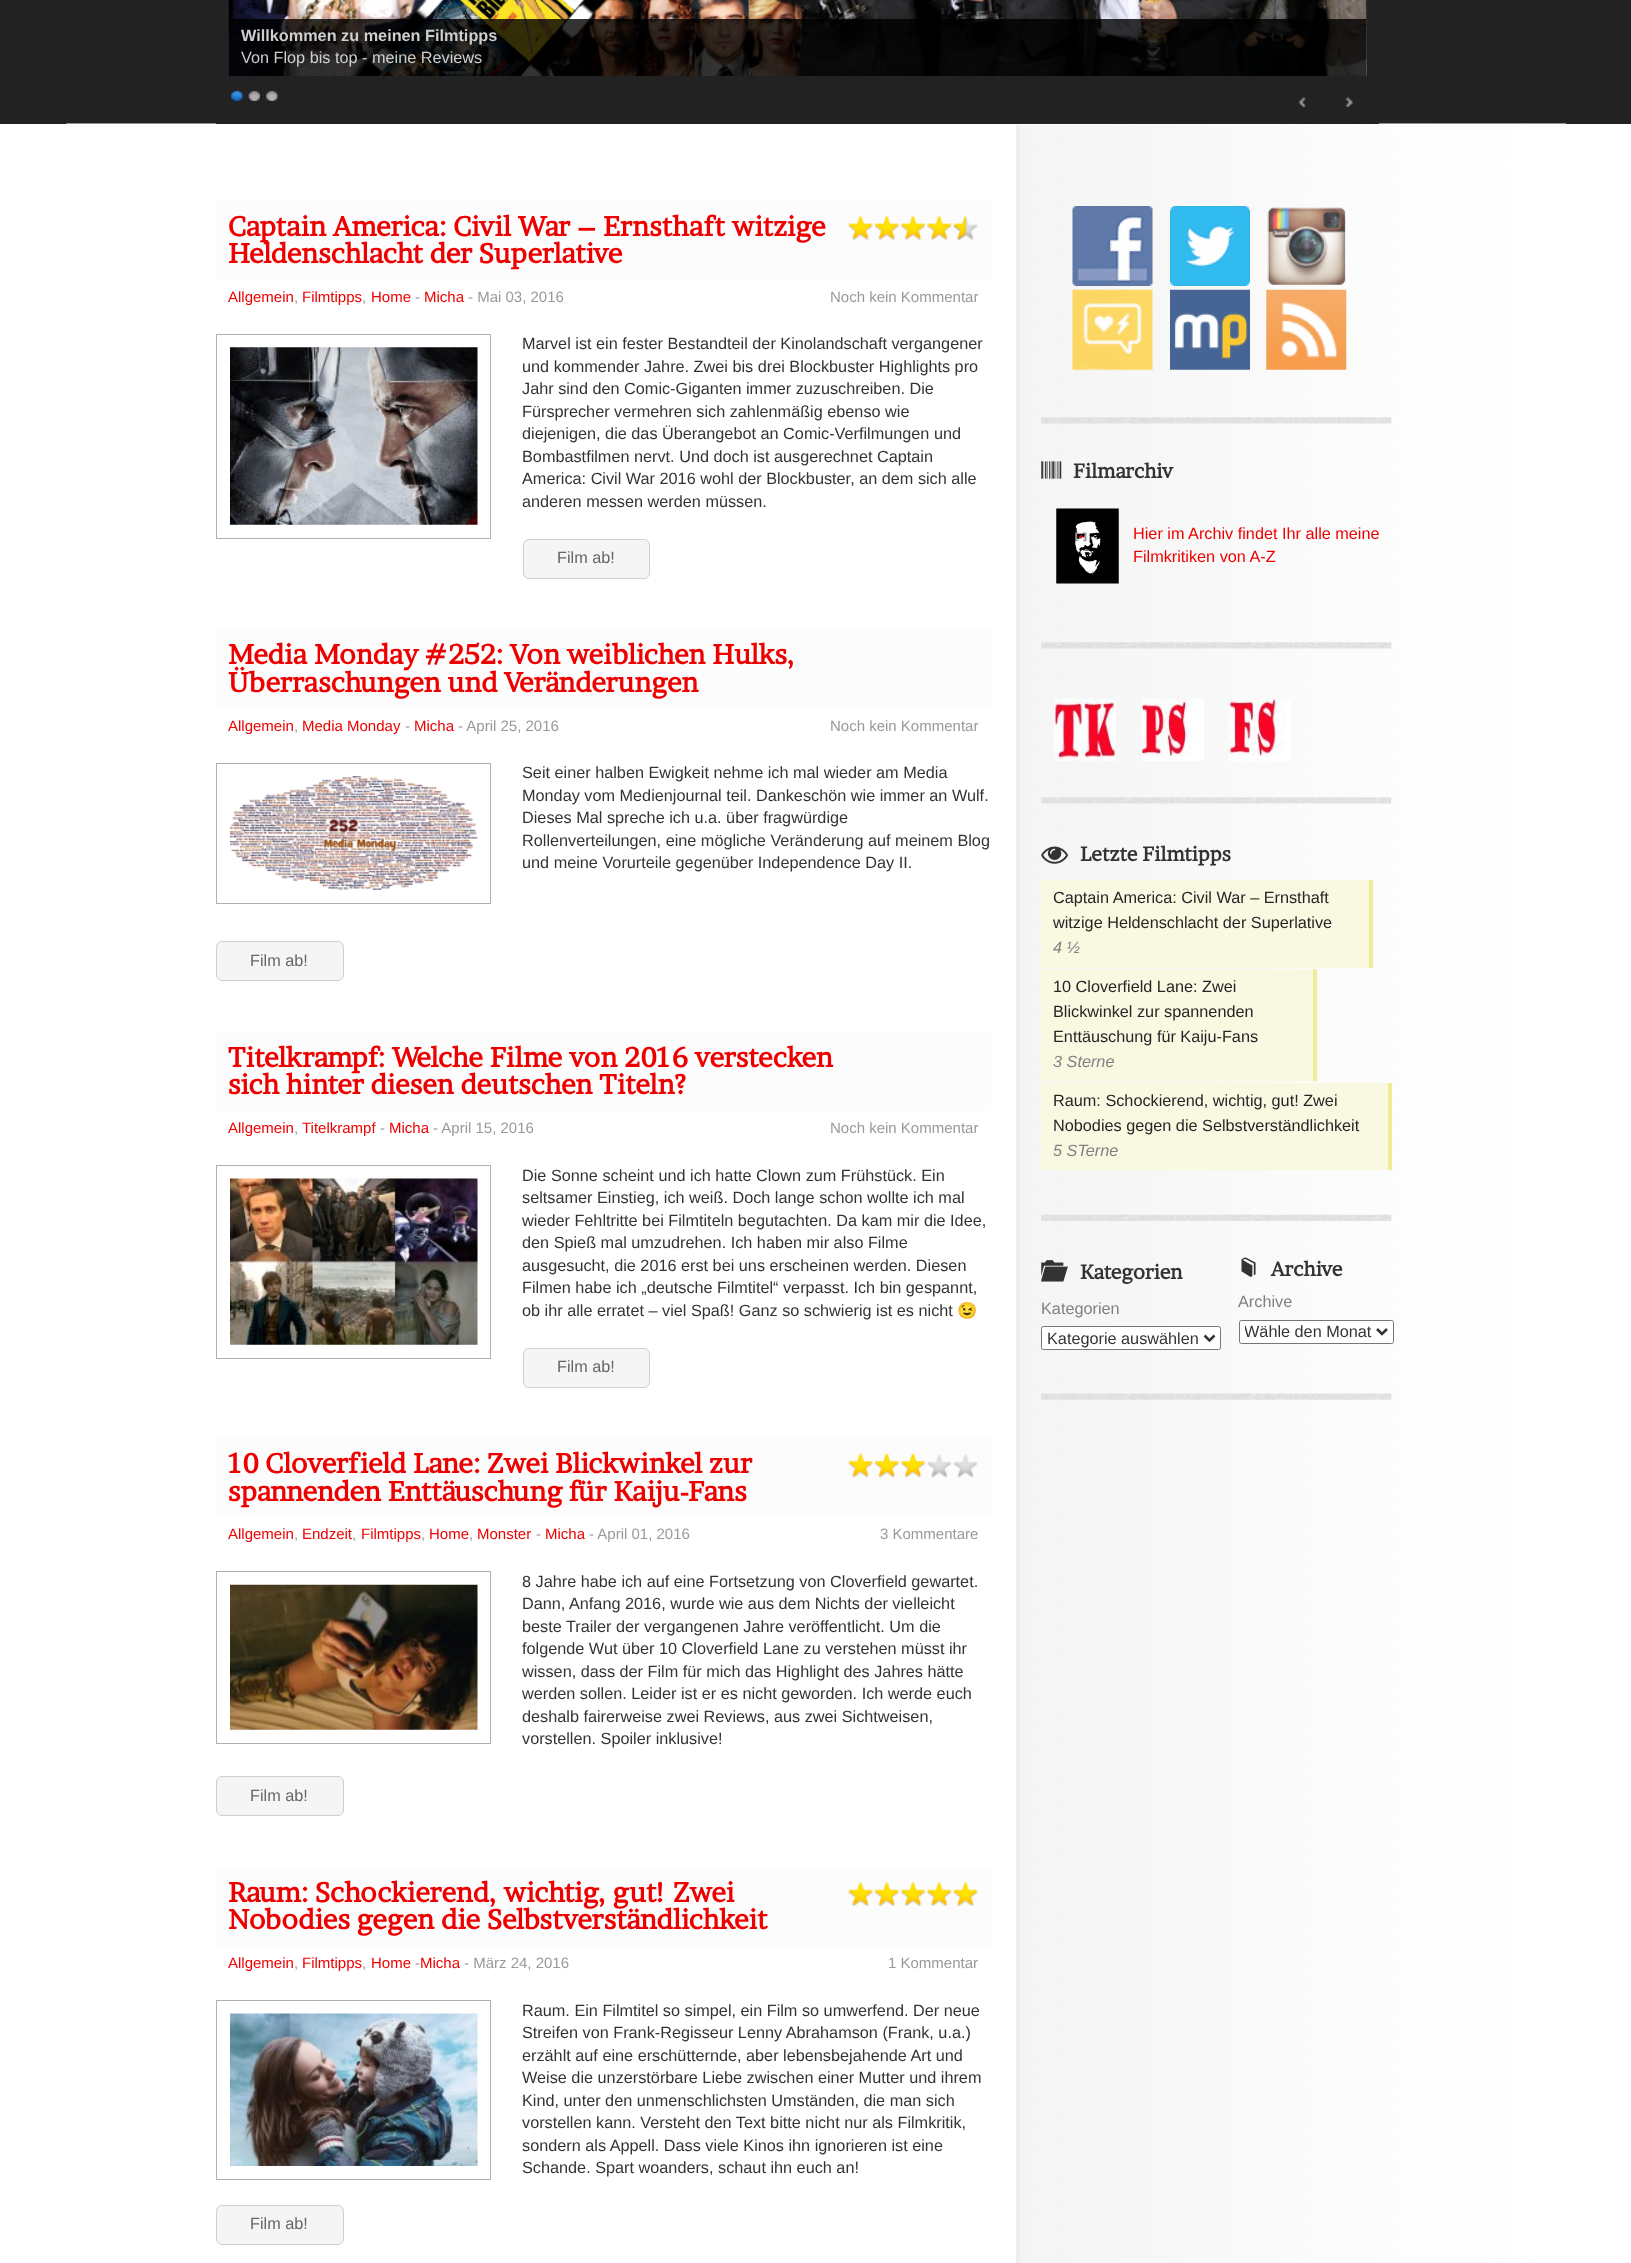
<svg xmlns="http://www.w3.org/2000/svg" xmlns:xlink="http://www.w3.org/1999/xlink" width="1631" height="2263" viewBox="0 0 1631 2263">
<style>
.cls-1{font:bold 16.25px Liberation Sans;fill:#cecece}
.cls-2{font:16.25px Liberation Sans;fill:#cecece}
.cls-3{font:bold 27.5px Brawler;fill:#ee0000}
.cls-4{font:15px Liberation Sans;fill:#ee0000}
.cls-5{font:15px Liberation Sans;fill:#999999}
.cls-6{font:16.25px Liberation Sans;fill:#333333}
.cls-7{font:16.25px Liberation Sans;fill:#666666}
.cls-8{font:16.25px Noto Color Emoji;fill:#333333}
.cls-9{font:bold 20px Brawler;fill:#333333}
.cls-10{font:16.25px Liberation Sans;fill:#ee0000}
.cls-11{font:16.25px Liberation Sans;fill:#252525}
.cls-12{font:italic 16.25px Liberation Sans;fill:#808080}
.cls-13{font:16.25px Liberation Sans;fill:#808080}
</style>
<defs>
<clipPath id="clip1"><rect x="1245" y="1321" width="128" height="22"/></clipPath>
</defs>
<rect width="100%" height="100%" fill="#222222"/>
<rect fill="#ffffff" x="0" y="125" width="1631" height="2138"/>
<image xlink:href="image6.png" x="66" y="123" width="1501" height="2140"/>
<rect fill="#222222" x="216" y="123" width="1163" height="1"/>
<image xlink:href="image0.png" x="228" y="0" width="1139" height="76"/>
<rect fill="#000000" fill-opacity="0.8" x="229" y="19" width="1137" height="57"/>
<image xlink:href="image1.png" x="1298" y="97" width="8" height="11"/>
<image xlink:href="image2.png" x="1345" y="97" width="9" height="11"/>
<image xlink:href="image3.png" x="231" y="90" width="12" height="11"/>
<image xlink:href="image4.png" x="248" y="91" width="12" height="10"/>
<image xlink:href="image5.png" x="266" y="91" width="12" height="10"/>
<rect fill="#ffffff" x="0" y="124" width="1631" height="1"/>
<rect fill="#fcfcfc" x="216" y="200" width="775" height="80" rx="2.5"/>
<image xlink:href="image7.png" x="848" y="215" width="130" height="25"/>
<rect fill="none" stroke="#b0b0b0" x="216.5" y="334.5" width="274" height="204"/>
<image xlink:href="image8.png" x="230" y="347" width="248" height="178"/>
<rect fill="#f5f5f5" stroke="#cfcfcf" x="523.5" y="539.5" width="126" height="39" rx="5.5"/>
<rect fill="#fcfcfc" x="216" y="629" width="775" height="80" rx="2.5"/>
<rect fill="none" stroke="#b0b0b0" x="216.5" y="763.5" width="274" height="140"/>
<image xlink:href="image9.png" x="230" y="776" width="248" height="114"/>
<rect fill="#f5f5f5" stroke="#cfcfcf" x="216.5" y="941.5" width="127" height="39" rx="5.5"/>
<rect fill="#fcfcfc" x="216" y="1031" width="775" height="80" rx="2.5"/>
<rect fill="none" stroke="#b0b0b0" x="216.5" y="1165.5" width="274" height="193"/>
<image xlink:href="image10.png" x="230" y="1178" width="248" height="167"/>
<rect fill="#f5f5f5" stroke="#cfcfcf" x="523.5" y="1348.5" width="126" height="39" rx="5.5"/>
<rect fill="#fcfcfc" x="216" y="1438" width="775" height="80" rx="2.5"/>
<image xlink:href="image11.png" x="848" y="1453" width="130" height="25"/>
<rect fill="none" stroke="#b0b0b0" x="216.5" y="1571.5" width="274" height="172"/>
<image xlink:href="image12.png" x="230" y="1584" width="248" height="146"/>
<rect fill="#f5f5f5" stroke="#cfcfcf" x="216.5" y="1776.5" width="127" height="39" rx="5.5"/>
<rect fill="#fcfcfc" x="216" y="1866" width="775" height="80" rx="2.5"/>
<image xlink:href="image13.png" x="848" y="1882" width="130" height="24"/>
<rect fill="none" stroke="#b0b0b0" x="216.5" y="2000.5" width="274" height="179"/>
<image xlink:href="image14.png" x="230" y="2013" width="248" height="153"/>
<rect fill="#f5f5f5" stroke="#cfcfcf" x="216.5" y="2205.5" width="127" height="39" rx="5.5"/>
<image xlink:href="image15.png" x="1072" y="206" width="81" height="80"/>
<image xlink:href="image16.png" x="1170" y="206" width="80" height="80"/>
<image xlink:href="image17.png" x="1267" y="207" width="79" height="78"/>
<image xlink:href="image18.png" x="1072" y="289" width="81" height="81"/>
<image xlink:href="image19.png" x="1170" y="289" width="80" height="81"/>
<image xlink:href="image20.png" x="1266" y="289" width="81" height="81"/>
<image xlink:href="image21.png" x="1041" y="417" width="351" height="7"/>
<image xlink:href="image22.png" x="1041" y="461" width="21" height="18"/>
<image xlink:href="image23.png" x="1056" y="508" width="63" height="76"/>
<image xlink:href="image24.png" x="1041" y="642" width="351" height="7"/>
<image xlink:href="image25.png" x="1054" y="698" width="62" height="63"/>
<image xlink:href="image26.png" x="1141" y="698" width="63" height="63"/>
<image xlink:href="image27.png" x="1228" y="698" width="63" height="63"/>
<image xlink:href="image28.png" x="1041" y="797" width="351" height="7"/>
<image xlink:href="image29.png" x="1041" y="846" width="27" height="18"/>
<rect fill="#f9f9e2" x="1041" y="880" width="328" height="88"/>
<rect fill="#f1ea99" x="1369" y="880" width="4" height="88"/>
<rect fill="#f9f9e2" x="1041" y="969" width="272" height="112"/>
<rect fill="#f1ea99" x="1313" y="969" width="4" height="112"/>
<rect fill="#f9f9e2" x="1041" y="1083" width="347" height="87"/>
<rect fill="#f1ea99" x="1388" y="1083" width="4" height="87"/>
<image xlink:href="image30.png" x="1041" y="1214" width="351" height="7"/>
<image xlink:href="image31.png" x="1041" y="1260" width="27" height="22"/>
<rect fill="#ffffff" stroke="#767676" x="1041.5" y="1326.5" width="179" height="23" rx="2"/>
<path fill="none" stroke="#333333" stroke-width="2.5" d="M1204.5 1335.5L1209.5 1340.5L1214.5 1335.5"/>
<image xlink:href="image32.png" x="1241" y="1257" width="15" height="20"/>
<rect fill="#ffffff" stroke="#767676" x="1239.5" y="1320.5" width="154" height="23" rx="2"/>
<path fill="none" stroke="#333333" stroke-width="2.5" d="M1377 1329L1382 1334L1387 1329"/>
<image xlink:href="image33.png" x="1041" y="1393" width="351" height="7"/>
<text class="cls-1" x="241" y="41">Willkommen zu meinen Filmtipps</text>
<text class="cls-2" x="241" y="63">Von Flop bis top - meine Reviews</text>
<text class="cls-3"><tspan x="228" y="236">Captain America: Civil War – Ernsthaft witzige</tspan><tspan x="228" y="263">Heldenschlacht der Superlative</tspan></text>
<text class="cls-4" x="228" y="302">Allgemein</text>
<text class="cls-4" x="302" y="302">Filmtipps</text>
<text class="cls-4" x="371" y="302">Home</text>
<text class="cls-5" x="415" y="302">‐</text>
<text class="cls-4" x="424" y="302">Micha</text>
<text class="cls-5" x="468" y="302">‐ Mai 03, 2016</text>
<text class="cls-5" x="830" y="302">Noch kein Kommentar</text>
<text class="cls-5" x="294" y="302">,</text>
<text class="cls-5" x="362" y="302">,</text>
<text class="cls-6"><tspan x="522" y="349">Marvel ist ein fester Bestandteil der Kinolandschaft vergangener</tspan><tspan x="522" y="372">und kommender Jahre. Zwei bis drei Blockbuster Highlights pro</tspan><tspan x="522" y="394">Jahr sind den Comic-Giganten immer zuzuschreiben. Die</tspan><tspan x="522" y="417">Fürsprecher vermehren sich zahlenmäßig ebenso wie</tspan><tspan x="522" y="439">diejenigen, die das Überangebot an Comic-Verfilmungen und</tspan><tspan x="522" y="462">Bombastfilmen nervt. Und doch ist ausgerechnet Captain</tspan><tspan x="522" y="484">America: Civil War 2016 wohl der Blockbuster, an dem sich alle</tspan><tspan x="522" y="507">anderen messen werden müssen.</tspan></text>
<text class="cls-7" x="557" y="563">Film ab!</text>
<text class="cls-3"><tspan x="228" y="664">Media Monday #252: Von weiblichen Hulks,</tspan><tspan x="228" y="692">Überraschungen und Veränderungen</tspan></text>
<text class="cls-4" x="228" y="731">Allgemein</text>
<text class="cls-4" x="302" y="731">Media Monday</text>
<text class="cls-5" x="405" y="731">‐</text>
<text class="cls-4" x="414" y="731">Micha</text>
<text class="cls-5" x="458" y="731">‐ April 25, 2016</text>
<text class="cls-5" x="830" y="731">Noch kein Kommentar</text>
<text class="cls-5" x="294" y="731">,</text>
<text class="cls-6"><tspan x="522" y="778">Seit einer halben Ewigkeit nehme ich mal wieder am Media</tspan><tspan x="522" y="801">Monday vom Medienjournal teil. Dankeschön wie immer an Wulf.</tspan><tspan x="522" y="823">Dieses Mal spreche ich u.a. über fragwürdige</tspan><tspan x="522" y="846">Rollenverteilungen, eine mögliche Veränderung auf meinem Blog</tspan><tspan x="522" y="868">und meine Vorurteile gegenüber Independence Day II.</tspan></text>
<text class="cls-7" x="250" y="966">Film ab!</text>
<text class="cls-3"><tspan x="228" y="1067">Titelkrampf: Welche Filme von 2016 verstecken</tspan><tspan x="228" y="1094">sich hinter diesen deutschen Titeln?</tspan></text>
<text class="cls-4" x="228" y="1133">Allgemein</text>
<text class="cls-4" x="302" y="1133">Titelkrampf</text>
<text class="cls-5" x="380" y="1133">‐</text>
<text class="cls-4" x="389" y="1133">Micha</text>
<text class="cls-5" x="433" y="1133">‐ April 15, 2016</text>
<text class="cls-5" x="830" y="1133">Noch kein Kommentar</text>
<text class="cls-5" x="294" y="1133">,</text>
<text class="cls-6"><tspan x="522" y="1181">Die Sonne scheint und ich hatte Clown zum Frühstück. Ein</tspan><tspan x="522" y="1203">seltsamer Einstieg, ich weiß. Doch lange schon wollte ich mal</tspan><tspan x="522" y="1226">wieder Fehltritte bei Filmtiteln begutachten. Da kam mir die Idee,</tspan><tspan x="522" y="1248">den Spieß mal umzudrehen. Ich haben mir also Filme</tspan><tspan x="522" y="1271">ausgesucht, die 2016 erst bei uns erscheinen werden. Diesen</tspan><tspan x="522" y="1293">Filmen habe ich „deutsche Filmtitel“ verpasst. Ich bin gespannt,</tspan><tspan x="522" y="1316">ob ihr alle erratet – viel Spaß! Ganz so schwierig ist es nicht</tspan></text>
<text class="cls-8" x="957" y="1316">😉</text>
<text class="cls-7" x="557" y="1372">Film ab!</text>
<text class="cls-3"><tspan x="228" y="1473">10 Cloverfield Lane: Zwei Blickwinkel zur</tspan><tspan x="228" y="1501">spannenden Enttäuschung für Kaiju-Fans</tspan></text>
<text class="cls-4" x="228" y="1539">Allgemein</text>
<text class="cls-4" x="302" y="1539">Endzeit</text>
<text class="cls-4" x="361" y="1539">Filmtipps</text>
<text class="cls-4" x="429" y="1539">Home</text>
<text class="cls-4" x="477" y="1539">Monster</text>
<text class="cls-5" x="536" y="1539">‐</text>
<text class="cls-4" x="545" y="1539">Micha</text>
<text class="cls-5" x="589" y="1539">‐ April 01, 2016</text>
<text class="cls-5" x="880" y="1539">3 Kommentare</text>
<text class="cls-5" x="294" y="1539">,</text>
<text class="cls-5" x="352" y="1539">,</text>
<text class="cls-5" x="421" y="1539">,</text>
<text class="cls-5" x="469" y="1539">,</text>
<text class="cls-6"><tspan x="522" y="1587">8 Jahre habe ich auf eine Fortsetzung von Cloverfield gewartet.</tspan><tspan x="522" y="1609">Dann, Anfang 2016, wurde wie aus dem Nichts der vielleicht</tspan><tspan x="522" y="1632">beste Trailer der vergangenen Jahre veröffentlicht. Um die</tspan><tspan x="522" y="1654">folgende Wut über 10 Cloverfield Lane zu verstehen müsst ihr</tspan><tspan x="522" y="1677">wissen, dass der Film für mich das Highlight des Jahres hätte</tspan><tspan x="522" y="1699">werden sollen. Leider ist er es nicht geworden. Ich werde euch</tspan><tspan x="522" y="1722">deshalb fairerweise zwei Reviews, aus zwei Sichtweisen,</tspan><tspan x="522" y="1744">vorstellen. Spoiler inklusive!</tspan></text>
<text class="cls-7" x="250" y="1801">Film ab!</text>
<text class="cls-3"><tspan x="228" y="1902">Raum: Schockierend, wichtig, gut! Zwei</tspan><tspan x="228" y="1929">Nobodies gegen die Selbstverständlichkeit</tspan></text>
<text class="cls-4" x="228" y="1968">Allgemein</text>
<text class="cls-4" x="302" y="1968">Filmtipps</text>
<text class="cls-4" x="371" y="1968">Home</text>
<text class="cls-5" x="415" y="1968">‐</text>
<text class="cls-4" x="420" y="1968">Micha</text>
<text class="cls-5" x="464" y="1968">‐ März 24, 2016</text>
<text class="cls-5" x="888" y="1968">1 Kommentar</text>
<text class="cls-5" x="294" y="1968">,</text>
<text class="cls-5" x="362" y="1968">,</text>
<text class="cls-6"><tspan x="522" y="2016">Raum. Ein Filmtitel so simpel, ein Film so umwerfend. Der neue</tspan><tspan x="522" y="2038">Streifen von Frank-Regisseur Lenny Abrahamson (Frank, u.a.)</tspan><tspan x="522" y="2061">erzählt auf eine erschütternde, aber lebensbejahende Art und</tspan><tspan x="522" y="2083">Weise die unzerstörbare Liebe zwischen einer Mutter und ihrem</tspan><tspan x="522" y="2106">Kind, unter den unmenschlichsten Umständen, die man sich</tspan><tspan x="522" y="2128">vorstellen kann. Versteht den Text bitte nicht nur als Filmkritik,</tspan><tspan x="522" y="2151">sondern als Appell. Dass viele Kinos ihn ignorieren ist eine</tspan><tspan x="522" y="2173">Schande. Spart woanders, schaut ihn euch an!</tspan></text>
<text class="cls-7" x="250" y="2229">Film ab!</text>
<text class="cls-9" x="1073" y="478">Filmarchiv</text>
<text class="cls-10"><tspan x="1133" y="539">Hier im Archiv findet Ihr alle meine</tspan><tspan x="1133" y="562">Filmkritiken von A-Z</tspan></text>
<text class="cls-9" x="1080" y="861">Letzte Filmtipps</text>
<text class="cls-11"><tspan x="1053" y="903">Captain America: Civil War – Ernsthaft</tspan><tspan x="1053" y="928">witzige Heldenschlacht der Superlative</tspan></text>
<text class="cls-12" x="1053" y="953">4 ½</text>
<text class="cls-11"><tspan x="1053" y="992">10 Cloverfield Lane: Zwei</tspan><tspan x="1053" y="1017">Blickwinkel zur spannenden</tspan><tspan x="1053" y="1042">Enttäuschung für Kaiju-Fans</tspan></text>
<text class="cls-12" x="1053" y="1067">3 Sterne</text>
<text class="cls-11"><tspan x="1053" y="1106">Raum: Schockierend, wichtig, gut! Zwei</tspan><tspan x="1053" y="1131">Nobodies gegen die Selbstverständlichkeit</tspan></text>
<text class="cls-12" x="1053" y="1156">5 STerne</text>
<text class="cls-9" x="1080" y="1279">Kategorien</text>
<text class="cls-13" x="1041" y="1314">Kategorien</text>
<text class="cls-6" x="1047" y="1344">Kategorie auswählen</text>
<text class="cls-9" x="1271" y="1276">Archive</text>
<text class="cls-13" x="1238" y="1307">Archive</text>
<g clip-path="url(#clip1)">
<text class="cls-6" x="1244" y="1337">Wähle den Monat</text>
</g>
</svg>
